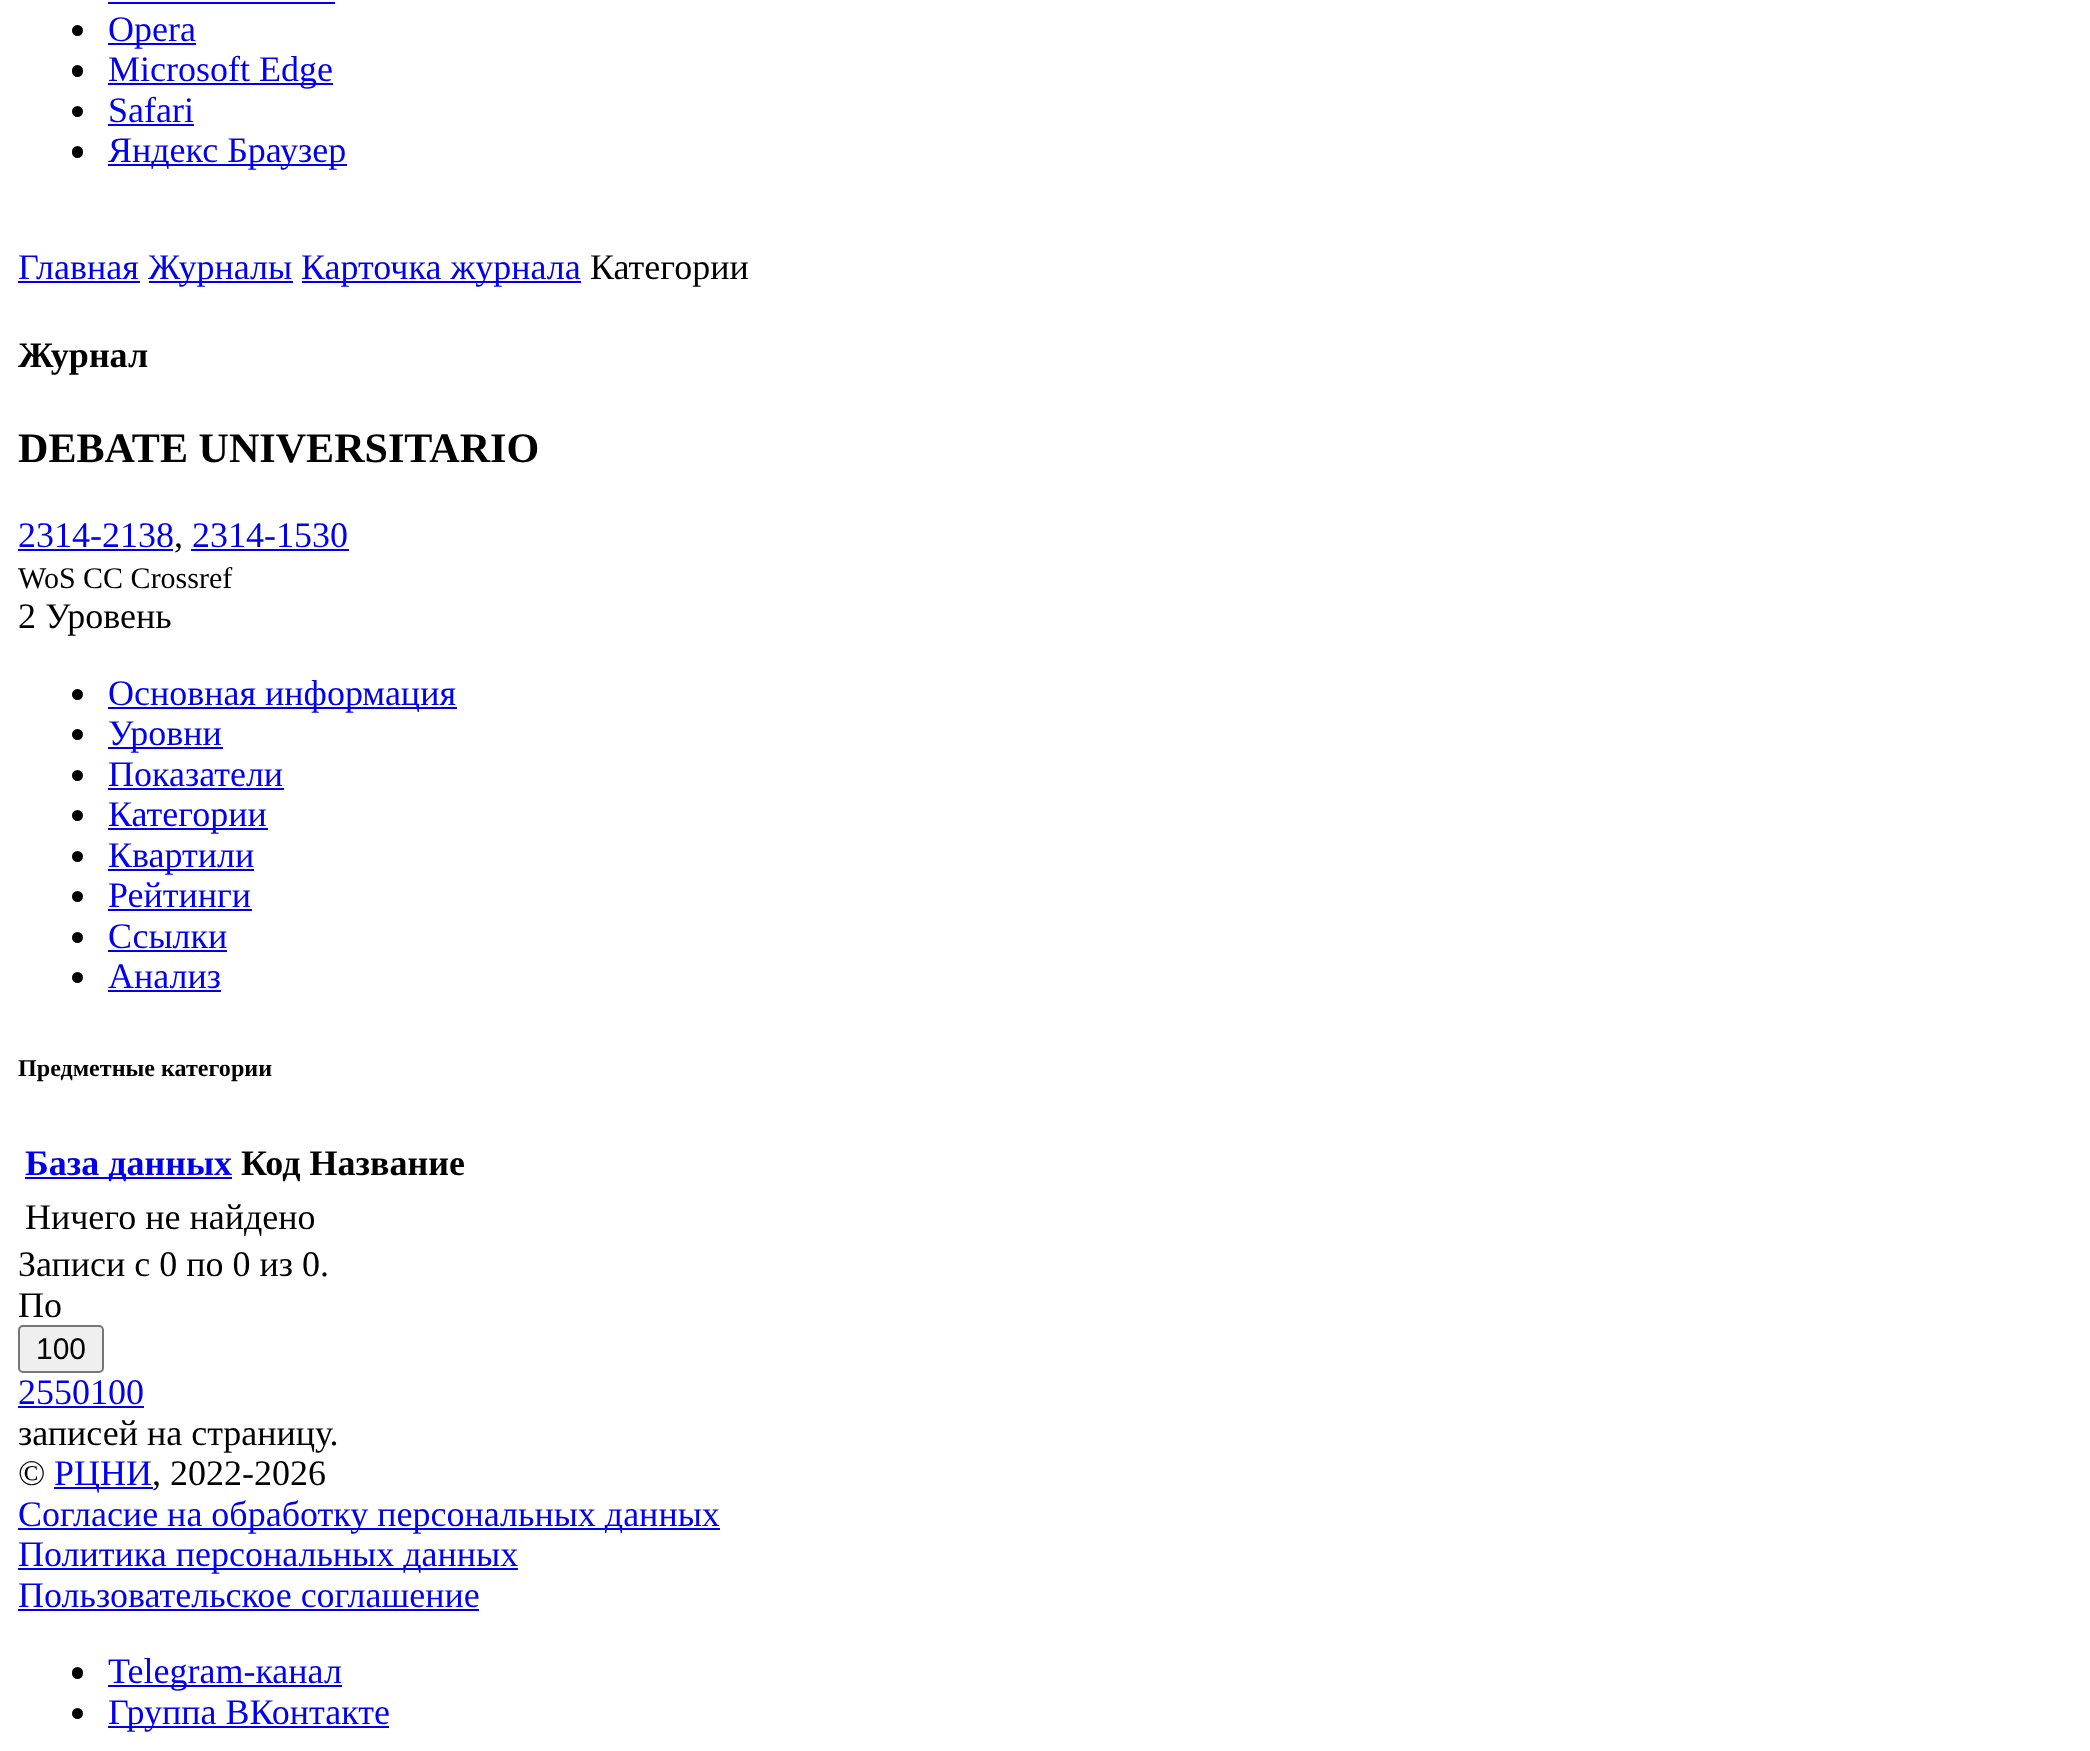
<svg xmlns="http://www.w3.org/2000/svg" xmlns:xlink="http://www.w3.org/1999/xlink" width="2090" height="1751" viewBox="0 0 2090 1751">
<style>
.cls-1{font:36px Liberation Serif;fill:#0000ee}
.cls-2{font:36px Liberation Serif;fill:#000000}
.cls-3{font:bold 36px Liberation Serif;fill:#000000}
.cls-4{font:bold 42.1px Liberation Serif;fill:#000000}
.cls-5{font:30px Liberation Serif;fill:#000000}
.cls-6{font:bold 24.1px Liberation Serif;fill:#000000}
.cls-7{font:bold 36px Liberation Serif;fill:#0000ee}
.cls-8{font:30px Liberation Sans;fill:#000000}
</style>
<rect width="100%" height="100%" fill="#ffffff"/>
<rect fill="#0000ee" x="108" y="2" width="227" height="2"/>
<circle fill="#000000" cx="77.5" cy="30.5" r="5.5"/>
<rect fill="#0000ee" x="108" y="43" width="88" height="2"/>
<rect fill="#000000" x="72" y="65" width="11" height="12" rx="5.5"/>
<rect fill="#0000ee" x="108" y="83" width="225" height="2"/>
<circle fill="#000000" cx="77.5" cy="111.5" r="5.5"/>
<rect fill="#0000ee" x="108" y="124" width="86" height="2"/>
<rect fill="#000000" x="72" y="146" width="11" height="12" rx="5.5"/>
<rect fill="#0000ee" x="108" y="164" width="239" height="2"/>
<rect fill="#0000ee" x="18" y="281" width="122" height="2"/>
<rect fill="#0000ee" x="149" y="281" width="144" height="2"/>
<rect fill="#0000ee" x="302" y="281" width="279" height="2"/>
<rect fill="#0000ee" x="18" y="549" width="155" height="2"/>
<rect fill="#0000ee" x="191" y="549" width="158" height="2"/>
<circle fill="#000000" cx="77.5" cy="694.5" r="5.5"/>
<rect fill="#0000ee" x="108" y="707" width="349" height="2"/>
<circle fill="#000000" cx="77.5" cy="734.5" r="5.5"/>
<rect fill="#0000ee" x="108" y="747" width="115" height="2"/>
<circle fill="#000000" cx="77.5" cy="775.5" r="5.5"/>
<rect fill="#0000ee" x="108" y="788" width="176" height="2"/>
<circle fill="#000000" cx="77.5" cy="815.5" r="5.5"/>
<rect fill="#0000ee" x="108" y="828" width="160" height="2"/>
<circle fill="#000000" cx="77.5" cy="856.5" r="5.5"/>
<rect fill="#0000ee" x="108" y="869" width="146" height="2"/>
<circle fill="#000000" cx="77.5" cy="896.5" r="5.5"/>
<rect fill="#0000ee" x="108" y="909" width="144" height="2"/>
<circle fill="#000000" cx="77.5" cy="937.5" r="5.5"/>
<rect fill="#0000ee" x="108" y="950" width="119" height="2"/>
<circle fill="#000000" cx="77.5" cy="977.5" r="5.5"/>
<rect fill="#0000ee" x="108" y="990" width="113" height="2"/>
<rect fill="#0000ee" x="25" y="1177" width="207" height="2"/>
<rect fill="#efefef" stroke="#767676" stroke-width="2" x="19" y="1326" width="84" height="46" rx="4"/>
<rect fill="#0000ee" x="18" y="1406" width="126" height="2"/>
<rect fill="#0000ee" x="54" y="1487" width="99" height="2"/>
<rect fill="#0000ee" x="18" y="1528" width="702" height="2"/>
<rect fill="#0000ee" x="18" y="1568" width="500" height="2"/>
<rect fill="#0000ee" x="18" y="1609" width="461" height="2"/>
<rect fill="#000000" x="72" y="1667" width="11" height="12" rx="5.5"/>
<rect fill="#0000ee" x="108" y="1685" width="234" height="2"/>
<circle fill="#000000" cx="77.5" cy="1713.5" r="5.5"/>
<rect fill="#0000ee" x="108" y="1726" width="281" height="2"/>
<text class="cls-1"><tspan x="108" y="41">Opera</tspan><tspan x="108" y="81">Microsoft Edge</tspan><tspan x="108" y="122">Safari</tspan><tspan x="108" y="162">Яндекс Браузер</tspan></text>
<text class="cls-1" x="18" y="279">Главная</text>
<text class="cls-1" x="148" y="279">Журналы</text>
<text class="cls-1" x="301" y="279">Карточка журнала</text>
<text class="cls-2" x="590" y="279">Категории</text>
<text class="cls-3" x="18" y="367">Журнал</text>
<text class="cls-4" x="18" y="462">DEBATE UNIVERSITARIO</text>
<text class="cls-1" x="18" y="547">2314-2138</text>
<text class="cls-2" x="174" y="547">,</text>
<text class="cls-1" x="192" y="547">2314-1530</text>
<text class="cls-5" x="18" y="588">WoS CC Crossref</text>
<text class="cls-2" x="18" y="628">2 Уровень</text>
<text class="cls-1"><tspan x="108" y="705">Основная информация</tspan><tspan x="108" y="745">Уровни</tspan><tspan x="108" y="786">Показатели</tspan><tspan x="108" y="826">Категории</tspan><tspan x="108" y="867">Квартили</tspan><tspan x="108" y="907">Рейтинги</tspan><tspan x="108" y="948">Ссылки</tspan><tspan x="108" y="988">Анализ</tspan></text>
<text class="cls-6" x="18" y="1076">Предметные категории</text>
<text class="cls-7" x="25" y="1175">База данных</text>
<text class="cls-3" x="241" y="1175">Код Название</text>
<text class="cls-2" x="25" y="1229">Ничего не найдено</text>
<text class="cls-2"><tspan x="18" y="1276">Записи с 0 по 0 из 0.</tspan><tspan x="18" y="1317">По</tspan></text>
<text class="cls-8" x="36" y="1359">100</text>
<text class="cls-1" x="18" y="1404">2550100</text>
<text class="cls-2"><tspan x="18" y="1445">записей на страницу.</tspan><tspan x="18" y="1485">©</tspan></text>
<text class="cls-1" x="54" y="1485">РЦНИ</text>
<text class="cls-2" x="152" y="1485">, 2022-2026</text>
<text class="cls-1"><tspan x="18" y="1526">Согласие на обработку персональных данных</tspan><tspan x="18" y="1566">Политика персональных данных</tspan><tspan x="18" y="1607">Пользовательское соглашение</tspan></text>
<text class="cls-1"><tspan x="108" y="1683">Telegram-канал</tspan><tspan x="108" y="1724">Группа ВКонтакте</tspan></text>
</svg>
